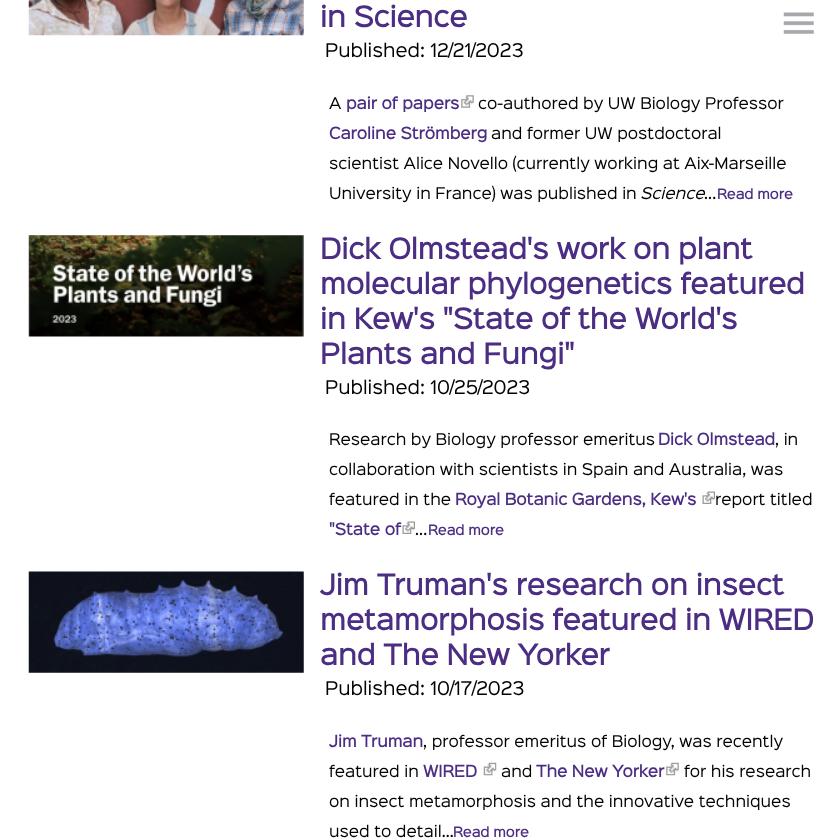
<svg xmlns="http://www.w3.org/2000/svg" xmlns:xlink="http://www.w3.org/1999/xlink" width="831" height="840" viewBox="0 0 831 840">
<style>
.cls-1{font:bold 25.75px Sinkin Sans;fill:#4b2e83}
.cls-2{font:17.1px Sinkin Sans;fill:#000000}
.cls-3{font:14.6px Sinkin Sans;fill:#000000}
.cls-4{font:bold 14.6px Sinkin Sans;fill:#4b2e83}
.cls-5{font:italic 14.6px Sinkin Sans;fill:#000000}
.cls-6{font:bold 12.5px Sinkin Sans;fill:#4b2e83}
</style>
<rect width="100%" height="100%" fill="#ffffff"/>
<image xlink:href="image0.png" x="28" y="0" width="276" height="36"/>
<image xlink:href="image1.png" x="461" y="95" width="13" height="13"/>
<image xlink:href="image2.png" x="28" y="235" width="276" height="102"/>
<image xlink:href="image3.png" x="702" y="491" width="13" height="13"/>
<image xlink:href="image4.png" x="402" y="521" width="13" height="13"/>
<image xlink:href="image5.png" x="28" y="571" width="276" height="102"/>
<image xlink:href="image6.png" x="483" y="762" width="14" height="14"/>
<image xlink:href="image7.png" x="666" y="762" width="13" height="14"/>
<image xlink:href="image8.png" x="783" y="12" width="31" height="22"/>
<text class="cls-1" x="320" y="27">in Science</text>
<text class="cls-2" x="325" y="57">Published: 12/21/2023</text>
<text class="cls-3" x="329" y="109">A</text>
<text class="cls-4" x="346" y="109">pair of papers</text>
<text class="cls-3" x="478" y="109">co-authored by UW Biology Professor</text>
<text class="cls-4" x="329" y="139">Caroline Strömberg</text>
<text class="cls-3" x="491" y="139">and former UW postdoctoral</text>
<text class="cls-3" x="329" y="169">scientist Alice Novello (currently working at Aix-Marseille</text>
<text class="cls-3" x="329" y="199">University in France) was published in</text>
<text class="cls-5" x="640" y="199">Science</text>
<text class="cls-3" x="704" y="199">...</text>
<text class="cls-6" x="717" y="199">Read more</text>
<text class="cls-1"><tspan x="320" y="259">Dick Olmstead's work on plant</tspan><tspan x="320" y="294">molecular phylogenetics featured</tspan><tspan x="320" y="329">in Kew's "State of the World's</tspan><tspan x="320" y="364">Plants and Fungi"</tspan></text>
<text class="cls-2" x="325" y="394">Published: 10/25/2023</text>
<text class="cls-3" x="329" y="445">Research by Biology professor emeritus</text>
<text class="cls-4" x="658" y="445">Dick Olmstead</text>
<text class="cls-3" x="775" y="445">, in</text>
<text class="cls-3" x="329" y="475">collaboration with scientists in Spain and Australia, was</text>
<text class="cls-3" x="329" y="505">featured in the</text>
<text class="cls-4" x="455" y="505">Royal Botanic Gardens, Kew's</text>
<text class="cls-3" x="715" y="505">report titled</text>
<text class="cls-4" x="329" y="535">"State of</text>
<text class="cls-3" x="415" y="535">...</text>
<text class="cls-6" x="428" y="535">Read more</text>
<text class="cls-1"><tspan x="320" y="595">Jim Truman's research on insect</tspan><tspan x="320" y="630">metamorphosis featured in WIRED</tspan><tspan x="320" y="665">and The New Yorker</tspan></text>
<text class="cls-2" x="325" y="695">Published: 10/17/2023</text>
<text class="cls-4" x="329" y="747">Jim Truman</text>
<text class="cls-3" x="423" y="747">, professor emeritus of Biology, was recently</text>
<text class="cls-3" x="329" y="777">featured in</text>
<text class="cls-4" x="423" y="777">WIRED</text>
<text class="cls-3" x="501" y="777">and</text>
<text class="cls-4" x="536" y="777">The New Yorker</text>
<text class="cls-3" x="684" y="777">for his research</text>
<text class="cls-3" x="329" y="807">on insect metamorphosis and the innovative techniques</text>
<text class="cls-3" x="329" y="837">used to detail...</text>
<text class="cls-6" x="453" y="837">Read more</text>
</svg>
